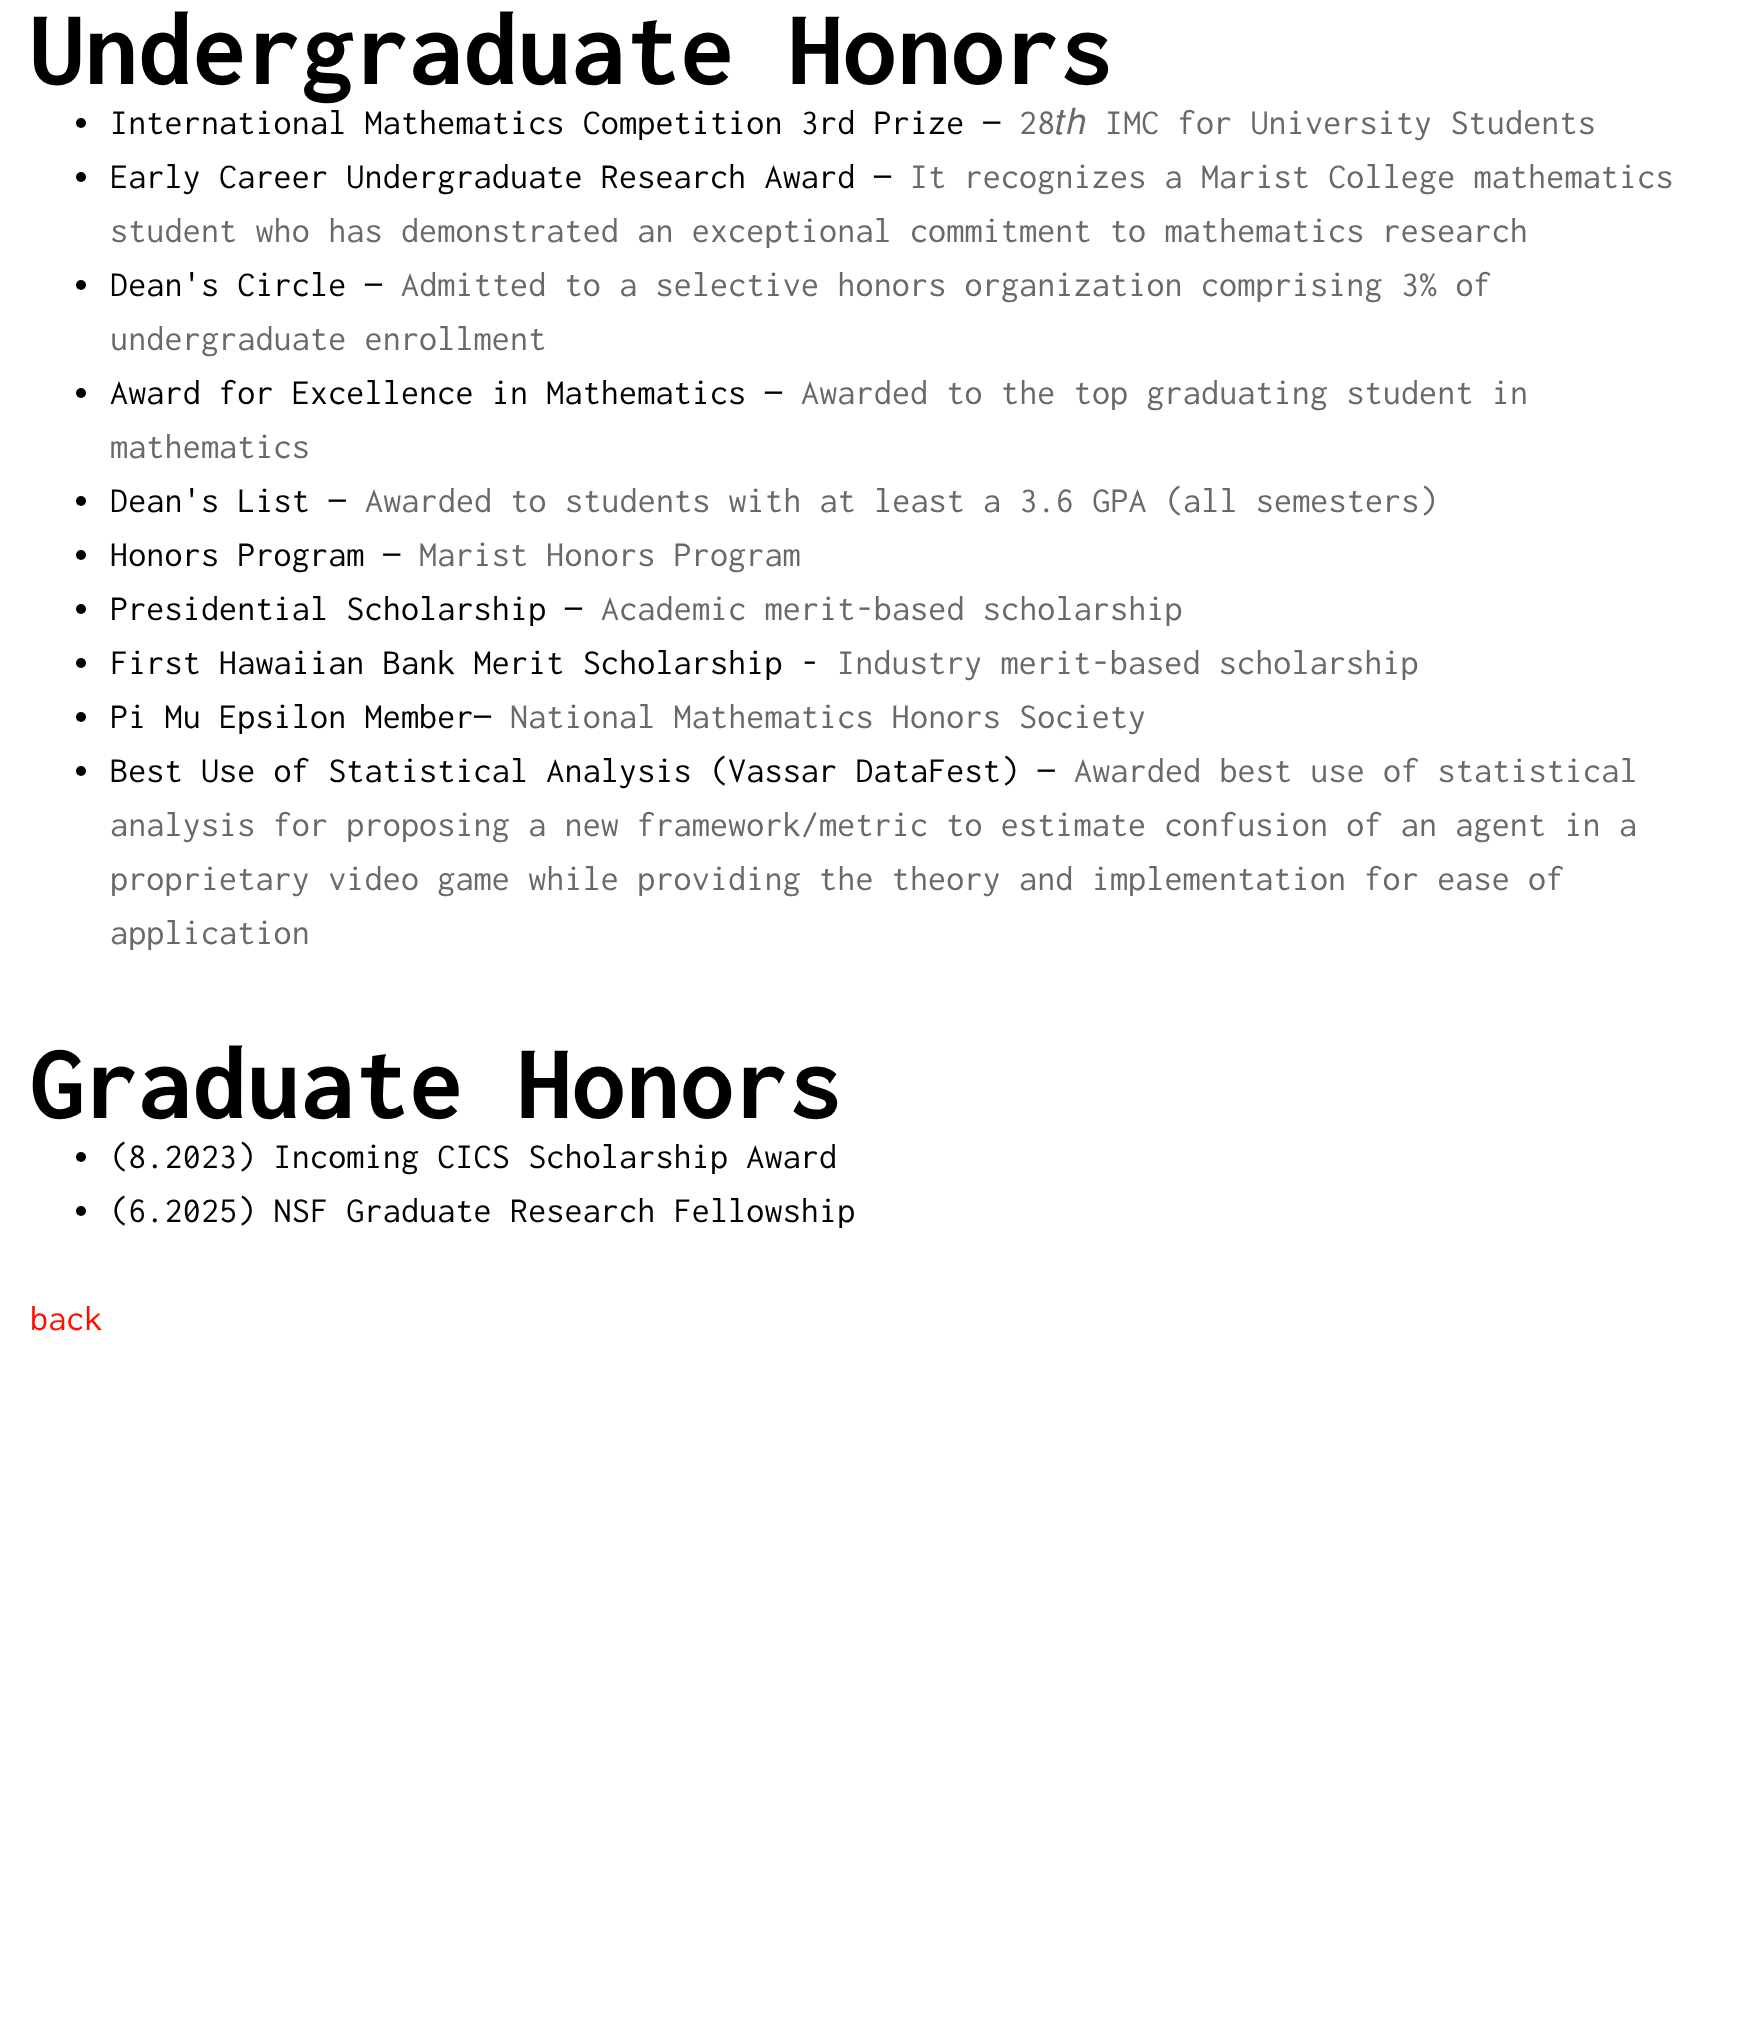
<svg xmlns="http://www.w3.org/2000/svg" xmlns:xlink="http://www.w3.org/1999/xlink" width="1751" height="2032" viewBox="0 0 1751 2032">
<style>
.cls-1{font:bold 108px Inconsolata;letter-spacing:0.18px;fill:#000000}
.cls-2{font:36px Inconsolata;letter-spacing:0.18px;fill:#000000}
.cls-3{font:36px Inconsolata;letter-spacing:0.18px;fill:#696969}
.cls-4{font:36px FreeSans;letter-spacing:0.18px;fill:#696969}
.cls-5{font:36px Inconsolata;letter-spacing:0.18px;fill:#ff0f00}
</style>
<rect width="100%" height="100%" fill="#ffffff"/>
<circle fill="#000000" cx="81" cy="123" r="5"/>
<circle fill="#000000" cx="81" cy="177" r="5"/>
<circle fill="#000000" cx="81" cy="285" r="5"/>
<circle fill="#000000" cx="81" cy="393" r="5"/>
<circle fill="#000000" cx="81" cy="501" r="5"/>
<circle fill="#000000" cx="81" cy="555" r="5"/>
<circle fill="#000000" cx="81" cy="609" r="5"/>
<circle fill="#000000" cx="81" cy="663" r="5"/>
<circle fill="#000000" cx="81" cy="717" r="5"/>
<circle fill="#000000" cx="81" cy="771" r="5"/>
<circle fill="#000000" cx="81" cy="1157" r="5"/>
<circle fill="#000000" cx="81" cy="1211" r="5"/>
<text class="cls-1" x="30" y="84">Undergraduate Honors</text>
<text class="cls-2" x="110" y="134">International Mathematics Competition 3rd Prize —</text>
<text class="cls-3" x="1019" y="134">28</text>
<text class="cls-4" x="1055" y="134">𝑡ℎ</text>
<text class="cls-3" x="1105" y="134">IMC for University Students</text>
<text class="cls-2" x="110" y="188">Early Career Undergraduate Research Award —</text>
<text class="cls-3" x="910" y="188">It recognizes a Marist College mathematics</text>
<text class="cls-3" x="110" y="242">student who has demonstrated an exceptional commitment to mathematics research</text>
<text class="cls-2" x="110" y="296">Dean's Circle —</text>
<text class="cls-3" x="401" y="296">Admitted to a selective honors organization comprising 3% of</text>
<text class="cls-3" x="110" y="350">undergraduate enrollment</text>
<text class="cls-2" x="110" y="404">Award for Excellence in Mathematics —</text>
<text class="cls-3" x="801" y="404">Awarded to the top graduating student in</text>
<text class="cls-3" x="110" y="458">mathematics</text>
<text class="cls-2" x="110" y="512">Dean's List —</text>
<text class="cls-3" x="365" y="512">Awarded to students with at least a 3.6 GPA (all semesters)</text>
<text class="cls-2" x="110" y="566">Honors Program —</text>
<text class="cls-3" x="419" y="566">Marist Honors Program</text>
<text class="cls-2" x="110" y="620">Presidential Scholarship —</text>
<text class="cls-3" x="601" y="620">Academic merit-based scholarship</text>
<text class="cls-2" x="110" y="674">First Hawaiian Bank Merit Scholarship -</text>
<text class="cls-3" x="837" y="674">Industry merit-based scholarship</text>
<text class="cls-2" x="110" y="728">Pi Mu Epsilon Member—</text>
<text class="cls-3" x="510" y="728">National Mathematics Honors Society</text>
<text class="cls-2" x="110" y="782">Best Use of Statistical Analysis (Vassar DataFest) —</text>
<text class="cls-3" x="1074" y="782">Awarded best use of statistical</text>
<text class="cls-3"><tspan x="110" y="836">analysis for proposing a new framework/metric to estimate confusion of an agent in a</tspan><tspan x="110" y="890">proprietary video game while providing the theory and implementation for ease of</tspan><tspan x="110" y="944">application</tspan></text>
<text class="cls-1" x="30" y="1118">Graduate Honors</text>
<text class="cls-2"><tspan x="110" y="1168">(8.2023) Incoming CICS Scholarship Award</tspan><tspan x="110" y="1222">(6.2025) NSF Graduate Research Fellowship</tspan></text>
<text class="cls-5" x="30" y="1330">back</text>
</svg>
